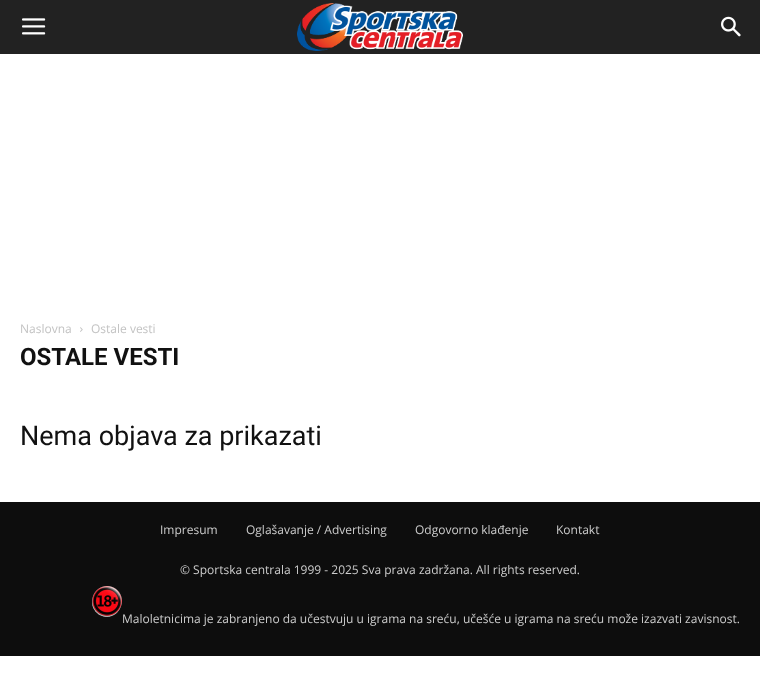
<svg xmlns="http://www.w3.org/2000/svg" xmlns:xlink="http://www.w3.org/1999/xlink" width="760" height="691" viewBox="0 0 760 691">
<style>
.cls-1{font:12px Open Sans;fill:#c3c3c3}
.cls-2{font:bold 24px Roboto;fill:#111111}
.cls-3{font:27px Roboto;fill:#111111}
.cls-4{font:12px Open Sans;fill:#cccccc}
</style>
<rect width="100%" height="100%" fill="#ffffff"/>
<rect fill="#222222" x="0" y="0" width="760" height="54"/>
<image xlink:href="image0.png" x="22" y="18" width="24" height="17"/>
<image xlink:href="image1.png" x="297" y="3" width="166" height="48"/>
<image xlink:href="image2.png" x="721" y="16" width="20" height="21"/>
<image xlink:href="image3.png" x="80" y="327" width="3" height="5"/>
<rect fill="#0d0d0d" x="0" y="502" width="760" height="154"/>
<image xlink:href="image4.png" x="92" y="586" width="30" height="31"/>
<text class="cls-1" x="20" y="333">Naslovna</text>
<text class="cls-1" x="91" y="333">Ostale vesti</text>
<text class="cls-2" x="20" y="365">OSTALE VESTI</text>
<text class="cls-3" x="20" y="445">Nema objava za prikazati</text>
<text class="cls-4" x="160" y="534">Impresum</text>
<text class="cls-4" x="246" y="534">Oglašavanje / Advertising</text>
<text class="cls-4" x="415" y="534">Odgovorno klađenje</text>
<text class="cls-4" x="556" y="534">Kontakt</text>
<text class="cls-4" x="180" y="574">© Sportska centrala 1999 - 2025 Sva prava zadržana. All rights reserved.</text>
<text class="cls-4" x="122" y="623">Maloletnicima je zabranjeno da učestvuju u igrama na sreću, učešće u igrama na sreću može izazvati zavisnost.</text>
</svg>
